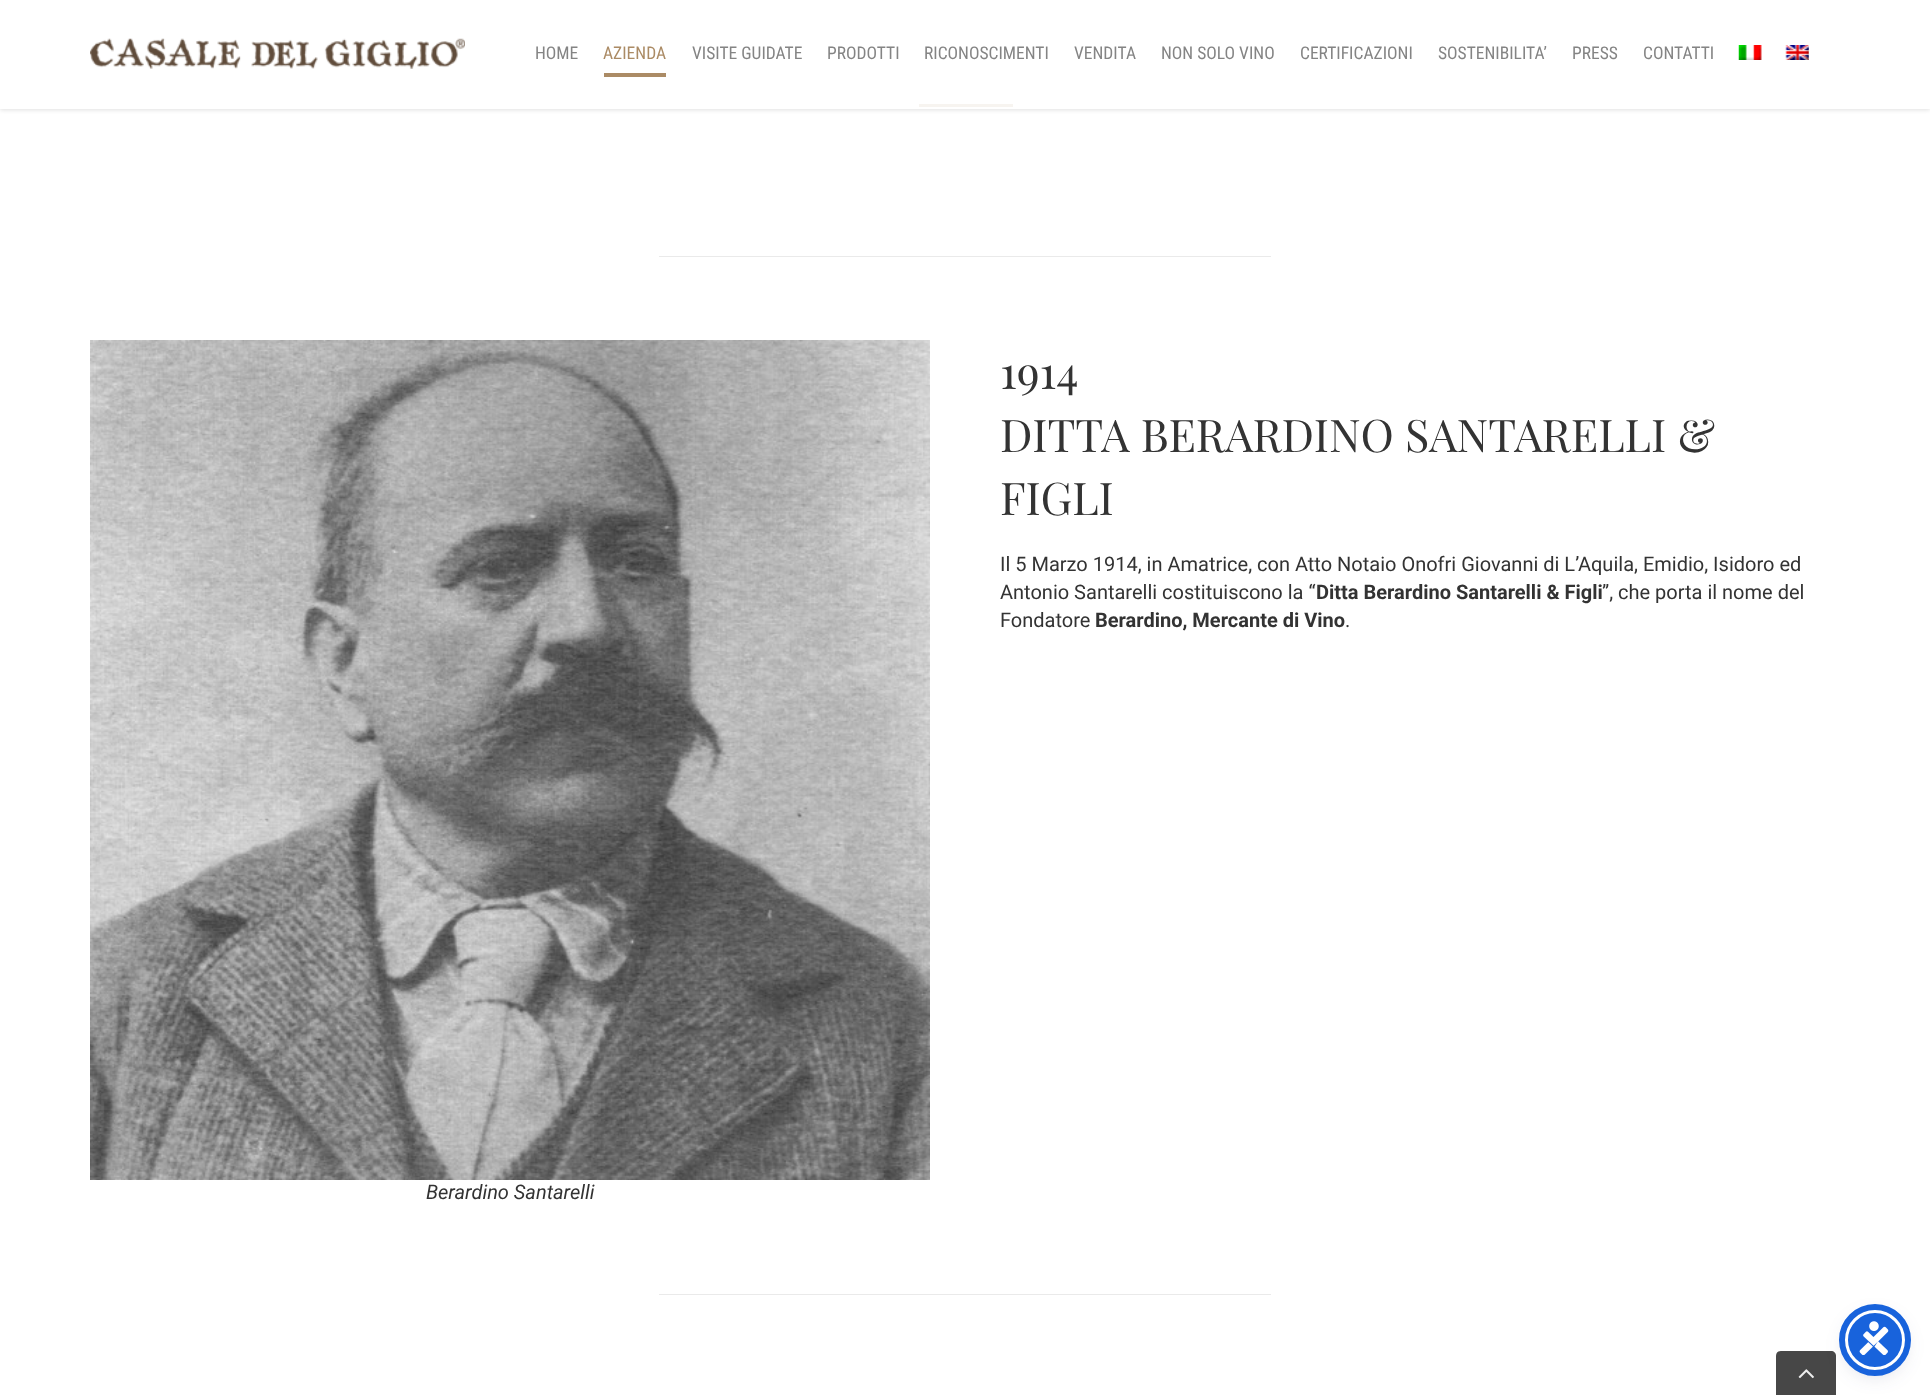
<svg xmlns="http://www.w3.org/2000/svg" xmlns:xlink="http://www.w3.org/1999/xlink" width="1930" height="1395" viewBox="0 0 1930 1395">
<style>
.cls-1{font:17.5px Roboto Condensed;fill:#848484}
.cls-2{font:17.5px Roboto Condensed;fill:#ab8b65}
.cls-3{font:45px Playfair Display;fill:#333333}
.cls-4{font:20px Roboto;fill:#333333}
.cls-5{font:bold 20px Roboto;fill:#333333}
.cls-6{font:italic 20px Roboto;fill:#333333}
</style>
<defs>
<clipPath id="clip1"><path d="M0 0H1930V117H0ZM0 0H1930V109H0Z" clip-rule="evenodd"/></clipPath>
</defs>
<rect width="100%" height="100%" fill="#ffffff"/>
<rect fill="#ab8b65" x="919" y="104" width="94" height="3"/>
<g clip-path="url(#clip1)">
<rect fill="#000000" fill-opacity="0.12" filter="blur(2px)" x="0" y="1" width="1930" height="109"/>
</g>
<rect fill="#ffffff" fill-opacity="0.9" x="0" y="104" width="1930" height="5"/>
<image xlink:href="image0.png" x="90" y="38" width="375" height="31"/>
<rect fill="#ab8b65" x="604" y="73" width="62" height="4"/>
<image xlink:href="image1.png" x="1738" y="45" width="24" height="15"/>
<image xlink:href="image2.png" x="1785" y="45" width="24" height="15"/>
<rect fill="#eaeaea" x="659" y="256" width="612" height="1"/>
<image xlink:href="image3.png" x="90" y="340" width="840" height="840"/>
<rect fill="#eaeaea" x="659" y="1294" width="612" height="1"/>
<path fill="#474747" d="M1781 1351H1831C1834 1351 1836 1353 1836 1356V1395H1776V1356C1776 1353 1778 1351 1781 1351Z"/>
<image xlink:href="image4.png" x="1798" y="1369" width="16" height="10"/>
<rect fill="#5d6494" fill-opacity="0.2" filter="blur(2.5px)" x="1845" y="1313" width="60" height="60" rx="30"/>
<rect fill="#252c61" fill-opacity="0.15" filter="blur(9.5px)" x="1845" y="1316" width="60" height="60" rx="30"/>
<circle fill="#1863dc" stroke="#ffffff" stroke-width="3" cx="1875" cy="1340" r="28.5"/>
<circle fill="none" stroke="#1863dc" stroke-width="6" cx="1875" cy="1340" r="33"/>
<image xlink:href="image5.png" x="1859" y="1321" width="30" height="34"/>
<text class="cls-1" x="535" y="59">HOME</text>
<text class="cls-2" x="603" y="59">AZIENDA</text>
<text class="cls-1" x="692" y="59">VISITE GUIDATE</text>
<text class="cls-1" x="827" y="59">PRODOTTI</text>
<text class="cls-1" x="924" y="59">RICONOSCIMENTI</text>
<text class="cls-1" x="1074" y="59">VENDITA</text>
<text class="cls-1" x="1161" y="59">NON SOLO VINO</text>
<text class="cls-1" x="1300" y="59">CERTIFICAZIONI</text>
<text class="cls-1" x="1438" y="59">SOSTENIBILITA’</text>
<text class="cls-1" x="1572" y="59">PRESS</text>
<text class="cls-1" x="1643" y="59">CONTATTI</text>
<text class="cls-3"><tspan x="1000" y="389">1914</tspan><tspan x="1000" y="452">DITTA BERARDINO SANTARELLI &amp;</tspan><tspan x="1000" y="515">FIGLI</tspan></text>
<text class="cls-4"><tspan x="1000" y="571">Il 5 Marzo 1914, in Amatrice, con Atto Notaio Onofri Giovanni di L’Aquila, Emidio, Isidoro ed</tspan><tspan x="1000" y="599">Antonio Santarelli costituiscono la “</tspan></text>
<text class="cls-5" x="1316" y="599">Ditta Berardino Santarelli &amp; Figli</text>
<text class="cls-4" x="1602" y="599">”, che porta il nome del</text>
<text class="cls-4" x="1000" y="627">Fondatore</text>
<text class="cls-5" x="1095" y="627">Berardino, Mercante di Vino</text>
<text class="cls-4" x="1345" y="627">.</text>
<text class="cls-6" x="426" y="1199">Berardino Santarelli</text>
</svg>
